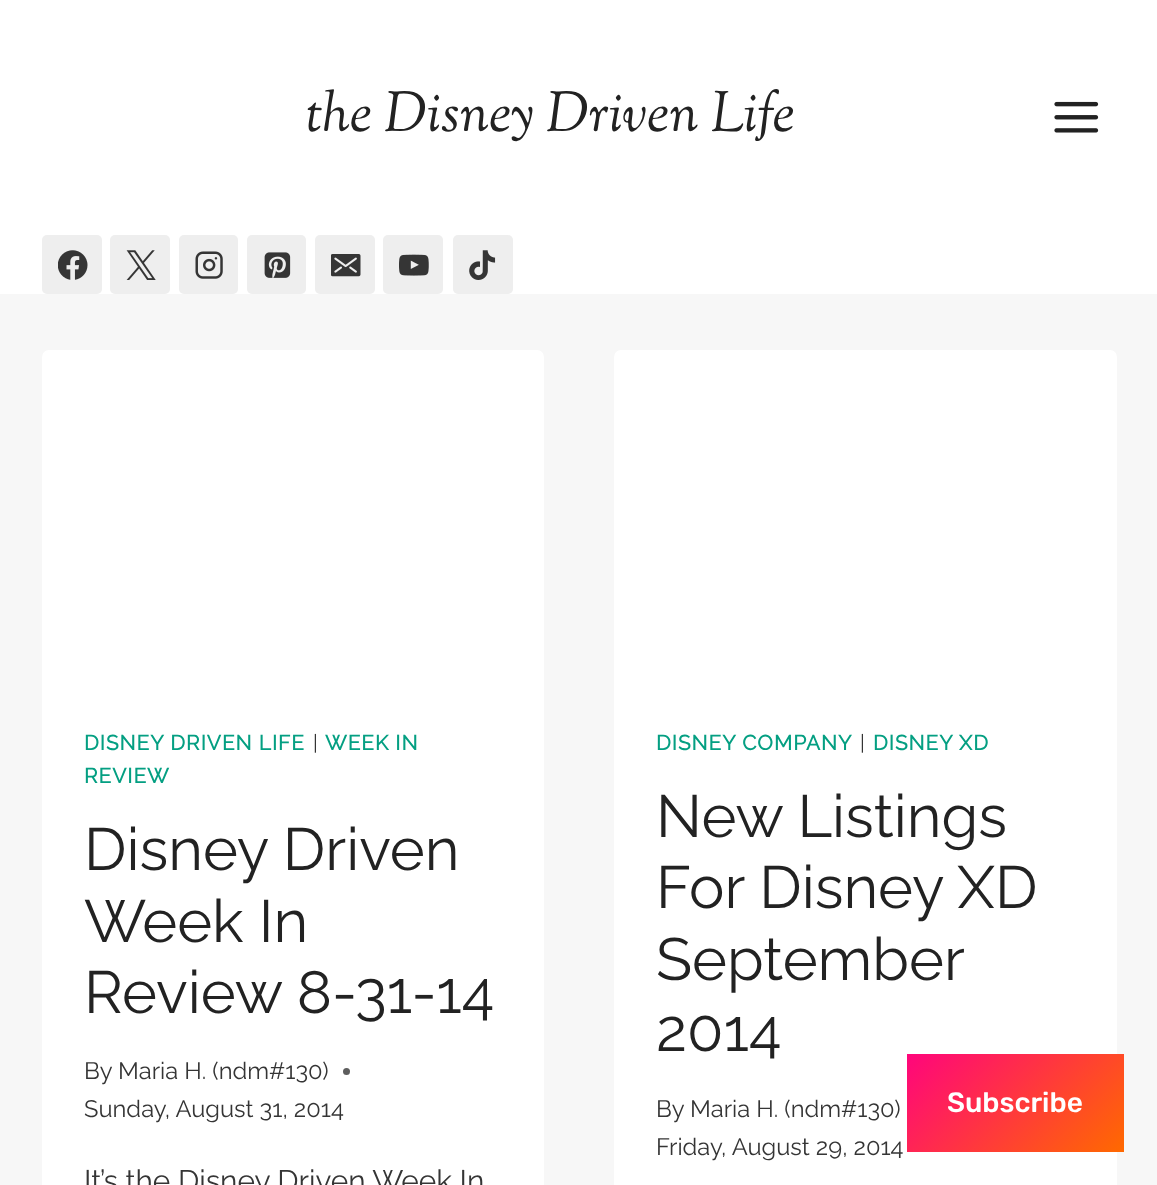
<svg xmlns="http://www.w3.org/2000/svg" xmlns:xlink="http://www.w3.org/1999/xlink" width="1157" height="1185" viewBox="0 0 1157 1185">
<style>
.cls-1{font:italic 56px Sorts Mill Goudy;fill:#222222}
.cls-2{font:bold 20.75px Raleway;letter-spacing:1px;fill:#049f82}
.cls-3{font:100 20.75px Raleway;letter-spacing:1px;fill:#353535}
.cls-4{font:100 59.5px Raleway;fill:#222222}
.cls-5{font:100 23.75px Raleway;fill:#353535}
.cls-6{font:100 29.75px Raleway;fill:#353535}
.cls-7{font:300 28px Rubik;fill:#ffffff}
</style>
<defs>
<linearGradient id="g1" gradientUnits="userSpaceOnUse" x1="936" y1="1024" x2="1094" y2="1181"><stop offset="0" stop-color="#ff057c"/><stop offset="1" stop-color="#ff6900"/></linearGradient>
</defs>
<rect width="100%" height="100%" fill="#f7f7f7"/>
<rect fill="#ffffff" x="0" y="0" width="1157" height="294"/>
<image xlink:href="image0.png" x="1054" y="101" width="45" height="32"/>
<rect fill="#eeeeee" x="42" y="235" width="60" height="59" rx="5"/>
<image xlink:href="image1.png" x="58" y="250" width="30" height="30"/>
<rect fill="#eeeeee" x="110" y="235" width="60" height="59" rx="5"/>
<image xlink:href="image2.png" x="126" y="250" width="30" height="30"/>
<rect fill="#eeeeee" x="179" y="235" width="59" height="59" rx="5"/>
<image xlink:href="image3.png" x="195" y="251" width="28" height="28"/>
<rect fill="#eeeeee" x="247" y="235" width="59" height="59" rx="5"/>
<image xlink:href="image4.png" x="264" y="252" width="27" height="26"/>
<rect fill="#eeeeee" x="315" y="235" width="60" height="59" rx="5"/>
<image xlink:href="image5.png" x="331" y="254" width="30" height="23"/>
<rect fill="#eeeeee" x="383" y="235" width="60" height="59" rx="5"/>
<image xlink:href="image6.png" x="399" y="254" width="30" height="22"/>
<rect fill="#eeeeee" x="453" y="235" width="60" height="59" rx="5"/>
<image xlink:href="image7.png" x="469" y="250" width="27" height="30"/>
<rect fill="#ffffff" x="42" y="350" width="502" height="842" rx="7"/>
<circle fill="#5d5d5d" cx="346.5" cy="1071.5" r="3.5"/>
<rect fill="#ffffff" x="614" y="350" width="503" height="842" rx="7"/>
<rect fill="url(#g1)" x="907" y="1054" width="217" height="98"/>
<text class="cls-1" x="306" y="131">the Disney Driven Life</text>
<text class="cls-2" x="84" y="750">DISNEY DRIVEN LIFE</text>
<text class="cls-3" x="313" y="750">|</text>
<text class="cls-2" x="325" y="750">WEEK IN</text>
<text class="cls-2" x="84" y="783">REVIEW</text>
<text class="cls-4"><tspan x="84" y="870">Disney Driven</tspan><tspan x="84" y="942">Week In</tspan><tspan x="84" y="1013">Review 8-31-14</tspan></text>
<text class="cls-5" x="84" y="1079">By</text>
<text class="cls-5" x="118" y="1079">Maria H. (ndm#130)</text>
<text class="cls-5" x="84" y="1117">Sunday, August 31, 2014</text>
<text class="cls-6" x="84" y="1191">It’s the Disney Driven Week In</text>
<text class="cls-2" x="656" y="750">DISNEY COMPANY</text>
<text class="cls-3" x="860" y="750">|</text>
<text class="cls-2" x="873" y="750">DISNEY XD</text>
<text class="cls-4"><tspan x="656" y="837">New Listings</tspan><tspan x="656" y="908">For Disney XD</tspan><tspan x="656" y="980">September</tspan><tspan x="656" y="1051">2014</tspan></text>
<text class="cls-5" x="656" y="1117">By</text>
<text class="cls-5" x="690" y="1117">Maria H. (ndm#130)</text>
<text class="cls-5" x="656" y="1155">Friday, August 29, 2014</text>
<text class="cls-7" x="947" y="1112">Subscribe</text>
</svg>
